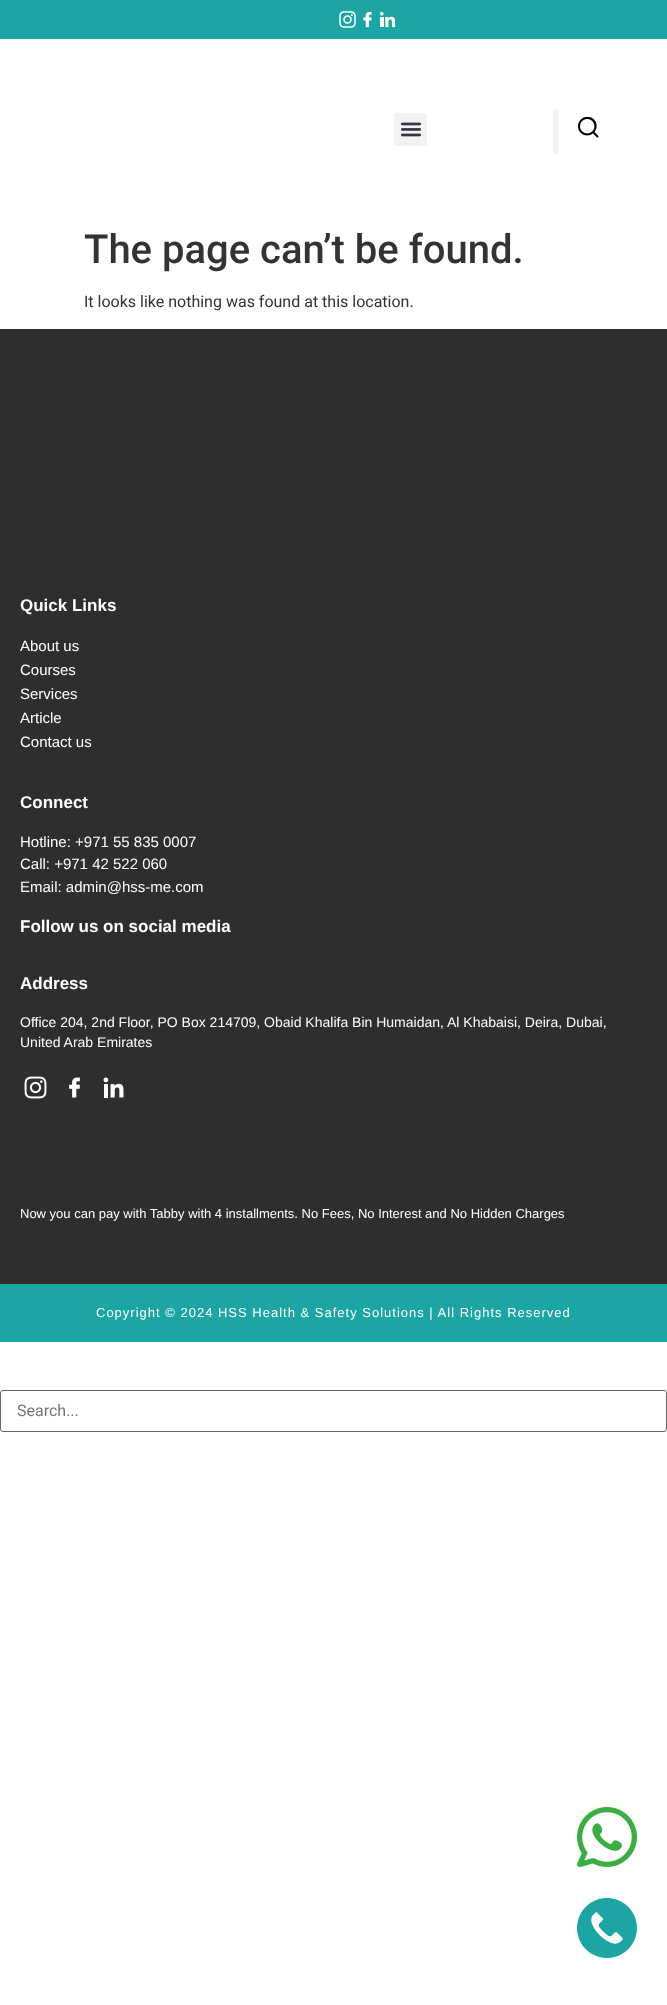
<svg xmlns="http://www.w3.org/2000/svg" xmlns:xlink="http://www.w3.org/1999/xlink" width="667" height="2005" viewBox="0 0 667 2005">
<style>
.cls-1{font:500 40px Roboto;fill:#333333}
.cls-2{font:16px Roboto;fill:#333333}
.cls-3{font:bold 17px Liberation Sans;fill:#ffffff}
.cls-4{font:15px Liberation Sans;fill:#ffffff}
.cls-5{font:14px Liberation Sans;fill:#ffffff}
.cls-6{font:13px Liberation Sans;fill:#ffffff}
.cls-7{font:13px Liberation Sans;letter-spacing:1px;fill:#ffffff}
.cls-8{font:16px Roboto;fill:#757575}
</style>
<rect width="100%" height="100%" fill="#ffffff"/>
<rect fill="#1ba6a5" x="0" y="0" width="667" height="39"/>
<image xlink:href="image0.png" x="339" y="11" width="17" height="17"/>
<image xlink:href="image1.png" x="363" y="11" width="9" height="17"/>
<image xlink:href="image2.png" x="379" y="11" width="17" height="17"/>
<rect fill="#f2f2f2" x="394" y="113" width="33" height="33" rx="3"/>
<image xlink:href="image3.png" x="400" y="122" width="22" height="15"/>
<rect fill="#f3f3f3" x="553" y="109" width="5" height="45"/>
<image xlink:href="image4.png" x="578" y="117" width="21" height="21"/>
<rect fill="#2e2e2e" x="0" y="329" width="667" height="955"/>
<image xlink:href="image5.png" x="24" y="1076" width="23" height="23"/>
<image xlink:href="image6.png" x="69" y="1077" width="11" height="21"/>
<image xlink:href="image7.png" x="103" y="1077" width="21" height="21"/>
<image xlink:href="image8.png" x="577" y="1807" width="60" height="60"/>
<image xlink:href="image9.png" x="577" y="1898" width="60" height="60"/>
<rect fill="#1ba6a5" x="0" y="1284" width="667" height="58"/>
<rect fill="none" stroke="#666666" x="0.5" y="1390.5" width="666" height="41" rx="2.5"/>
<text class="cls-1" x="84" y="263">The page can’t be found.</text>
<text class="cls-2" x="84" y="307">It looks like nothing was found at this location.</text>
<text class="cls-3" x="20" y="611">Quick Links</text>
<text class="cls-4"><tspan x="20" y="651">About us</tspan><tspan x="20" y="675">Courses</tspan><tspan x="20" y="699">Services</tspan><tspan x="20" y="723">Article</tspan><tspan x="20" y="747">Contact us</tspan></text>
<text class="cls-3" x="20" y="808">Connect</text>
<text class="cls-4"><tspan x="20" y="847">Hotline: +971 55 835 0007</tspan><tspan x="20" y="869">Call: +971 42 522 060</tspan><tspan x="20" y="892">Email: admin@hss-me.com</tspan></text>
<text class="cls-3" x="20" y="932">Follow us on social media</text>
<text class="cls-3" x="20" y="989">Address</text>
<text class="cls-5"><tspan x="20" y="1027">Office 204, 2nd Floor, PO Box 214709, Obaid Khalifa Bin Humaidan, Al Khabaisi, Deira, Dubai,</tspan><tspan x="20" y="1047">United Arab Emirates</tspan></text>
<text class="cls-6" x="20" y="1218">Now you can pay with Tabby with 4 installments. No Fees, No Interest and No Hidden Charges</text>
<text class="cls-7" x="96" y="1317">Copyright © 2024 HSS Health &amp; Safety Solutions | All Rights Reserved</text>
<text class="cls-8" x="17" y="1416">Search...</text>
</svg>
